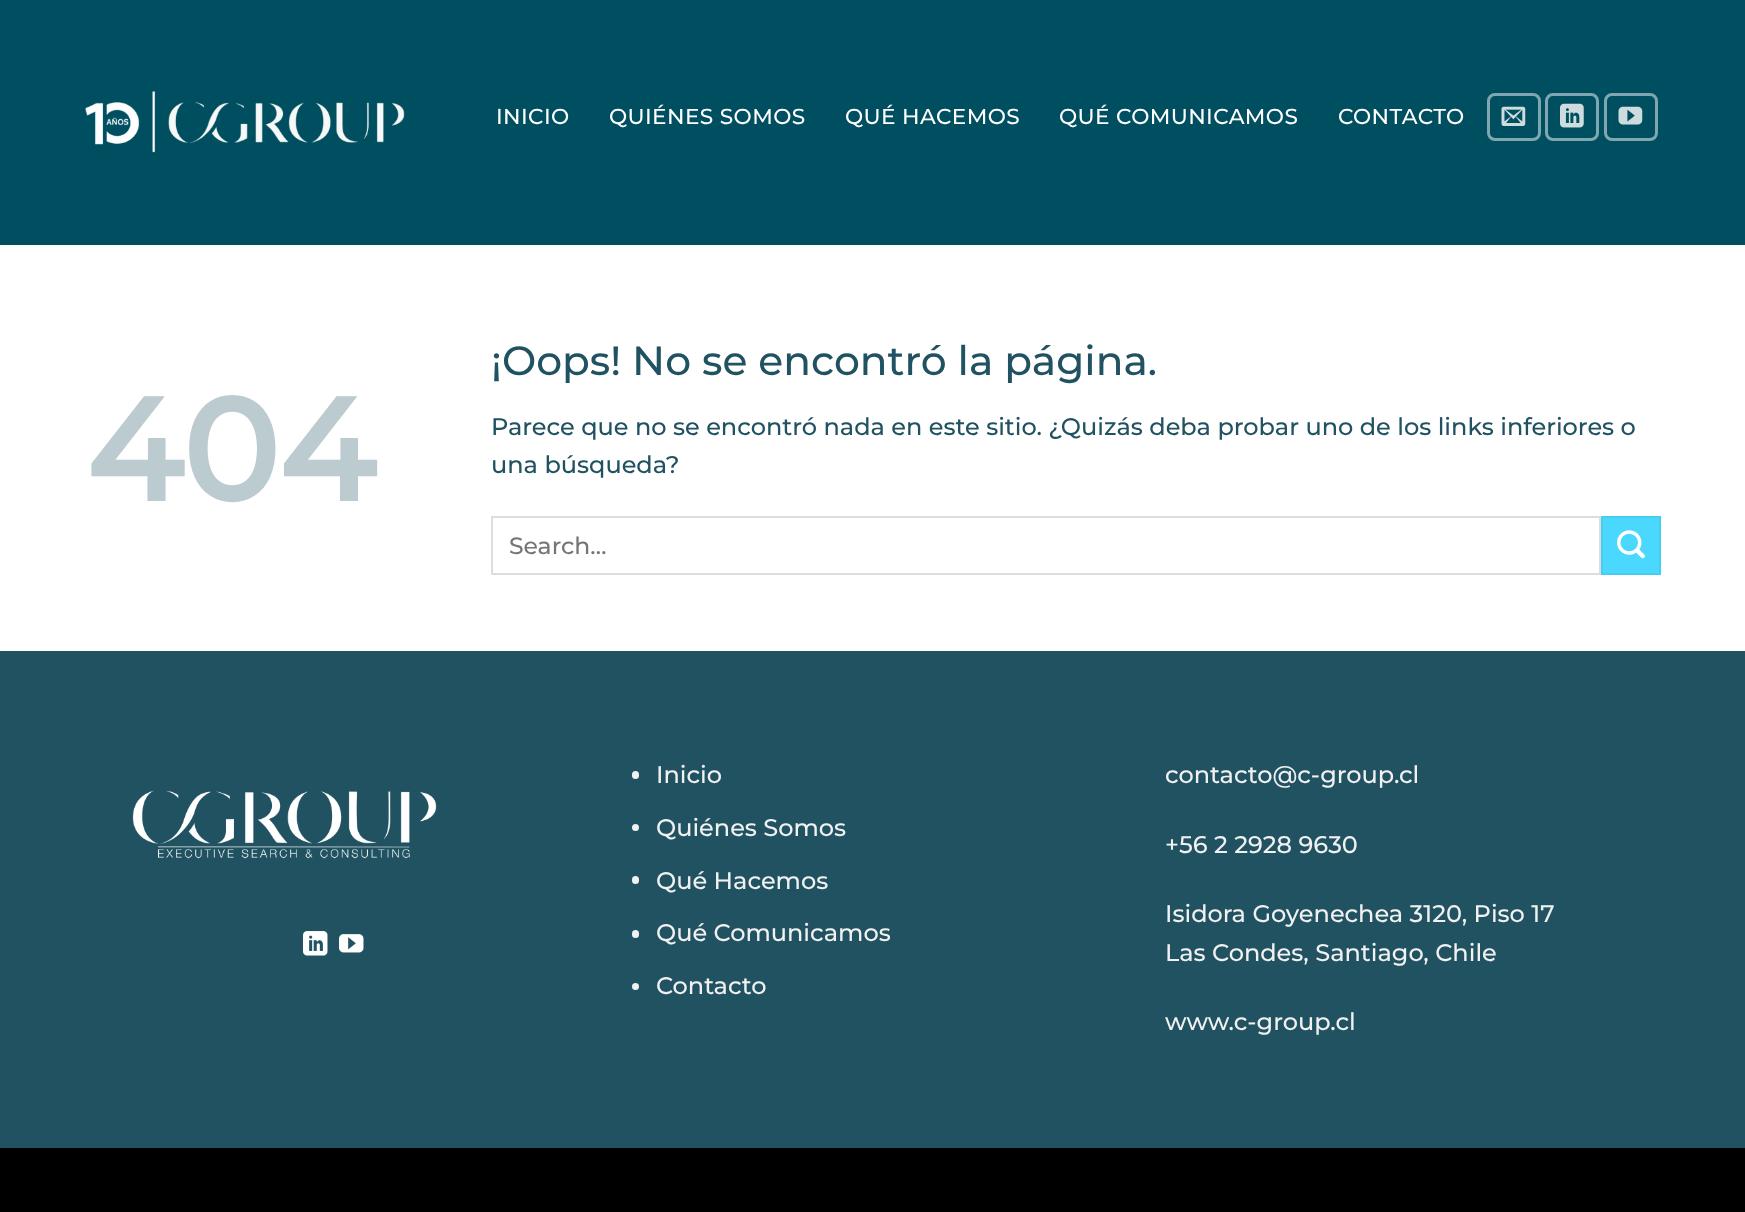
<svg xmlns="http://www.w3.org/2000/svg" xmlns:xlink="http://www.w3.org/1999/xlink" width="1745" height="1212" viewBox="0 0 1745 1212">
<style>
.cls-1{font:500 21.6px Montserrat;letter-spacing:0.4px;fill:#ffffff}
.cls-2{font:bold 144px Montserrat;fill:#bccbd0}
.cls-3{font:500 40.75px Montserrat;fill:#205261}
.cls-4{font:500 24px Montserrat;fill:#205261}
.cls-5{font:500 23.5px Montserrat;fill:#757575}
.cls-6{font:500 24px Montserrat;fill:#f1f1f1}
</style>
<rect width="100%" height="100%" fill="#000000"/>
<rect fill="#ffffff" x="0" y="245" width="1745" height="406"/>
<rect fill="#004f60" x="0" y="0" width="1745" height="245"/>
<image xlink:href="image0.png" x="85" y="91" width="320" height="62"/>
<rect fill="none" stroke="#80a7b0" stroke-width="3" x="1488.5" y="94.5" width="51" height="45" rx="6.5"/>
<image xlink:href="image1.png" x="1501" y="106" width="25" height="20"/>
<rect fill="none" stroke="#80a7b0" stroke-width="3" x="1546.5" y="94.5" width="51" height="45" rx="6.5"/>
<image xlink:href="image2.png" x="1560" y="103" width="24" height="25"/>
<rect fill="none" stroke="#80a7b0" stroke-width="3" x="1605.5" y="94.5" width="51" height="45" rx="6.5"/>
<image xlink:href="image3.png" x="1618" y="106" width="25" height="19"/>
<rect fill="none" stroke="#dddddd" stroke-width="2" x="492" y="517" width="1108" height="57"/>
<rect fill="#4ad8ff" stroke="#46cdf2" stroke-width="2" x="1602" y="517" width="58" height="57"/>
<image xlink:href="image4.png" x="1617" y="530" width="28" height="29"/>
<rect fill="#205261" x="0" y="651" width="1745" height="497"/>
<image xlink:href="image5.png" x="132" y="790" width="305" height="69"/>
<image xlink:href="image6.png" x="303" y="931" width="25" height="25"/>
<image xlink:href="image7.png" x="339" y="934" width="25" height="19"/>
<rect fill="#f1f1f1" x="632" y="771" width="7" height="8" rx="3.5"/>
<circle fill="#f1f1f1" cx="635.5" cy="827.5" r="3.5"/>
<rect fill="#f1f1f1" x="632" y="876" width="7" height="8" rx="3.5"/>
<rect fill="#f1f1f1" x="632" y="930" width="7" height="8" rx="3.5"/>
<circle fill="#f1f1f1" cx="635.5" cy="986.5" r="3.5"/>
<text class="cls-1" x="496" y="124">INICIO</text>
<text class="cls-1" x="609" y="124">QUIÉNES SOMOS</text>
<text class="cls-1" x="845" y="124">QUÉ HACEMOS</text>
<text class="cls-1" x="1059" y="124">QUÉ COMUNICAMOS</text>
<text class="cls-1" x="1338" y="124">CONTACTO</text>
<text class="cls-2" x="86" y="501">404</text>
<text class="cls-3" x="491" y="375">¡Oops! No se encontró la página.</text>
<text class="cls-4"><tspan x="491" y="435">Parece que no se encontró nada en este sitio. ¿Quizás deba probar uno de los links inferiores o</tspan><tspan x="491" y="473">una búsqueda?</tspan></text>
<text class="cls-5" x="509" y="554">Search…</text>
<text class="cls-6" x="656" y="783">Inicio</text>
<text class="cls-6" x="656" y="836">Quiénes Somos</text>
<text class="cls-6" x="656" y="889">Qué Hacemos</text>
<text class="cls-6" x="656" y="941">Qué Comunicamos</text>
<text class="cls-6" x="656" y="994">Contacto</text>
<text class="cls-6" x="1165" y="783">contacto@c-group.cl</text>
<text class="cls-6" x="1165" y="853">+56 2 2928 9630</text>
<text class="cls-6"><tspan x="1165" y="922">Isidora Goyenechea 3120, Piso 17</tspan><tspan x="1165" y="961">Las Condes, Santiago, Chile</tspan></text>
<text class="cls-6" x="1165" y="1030">www.c-group.cl</text>
</svg>
